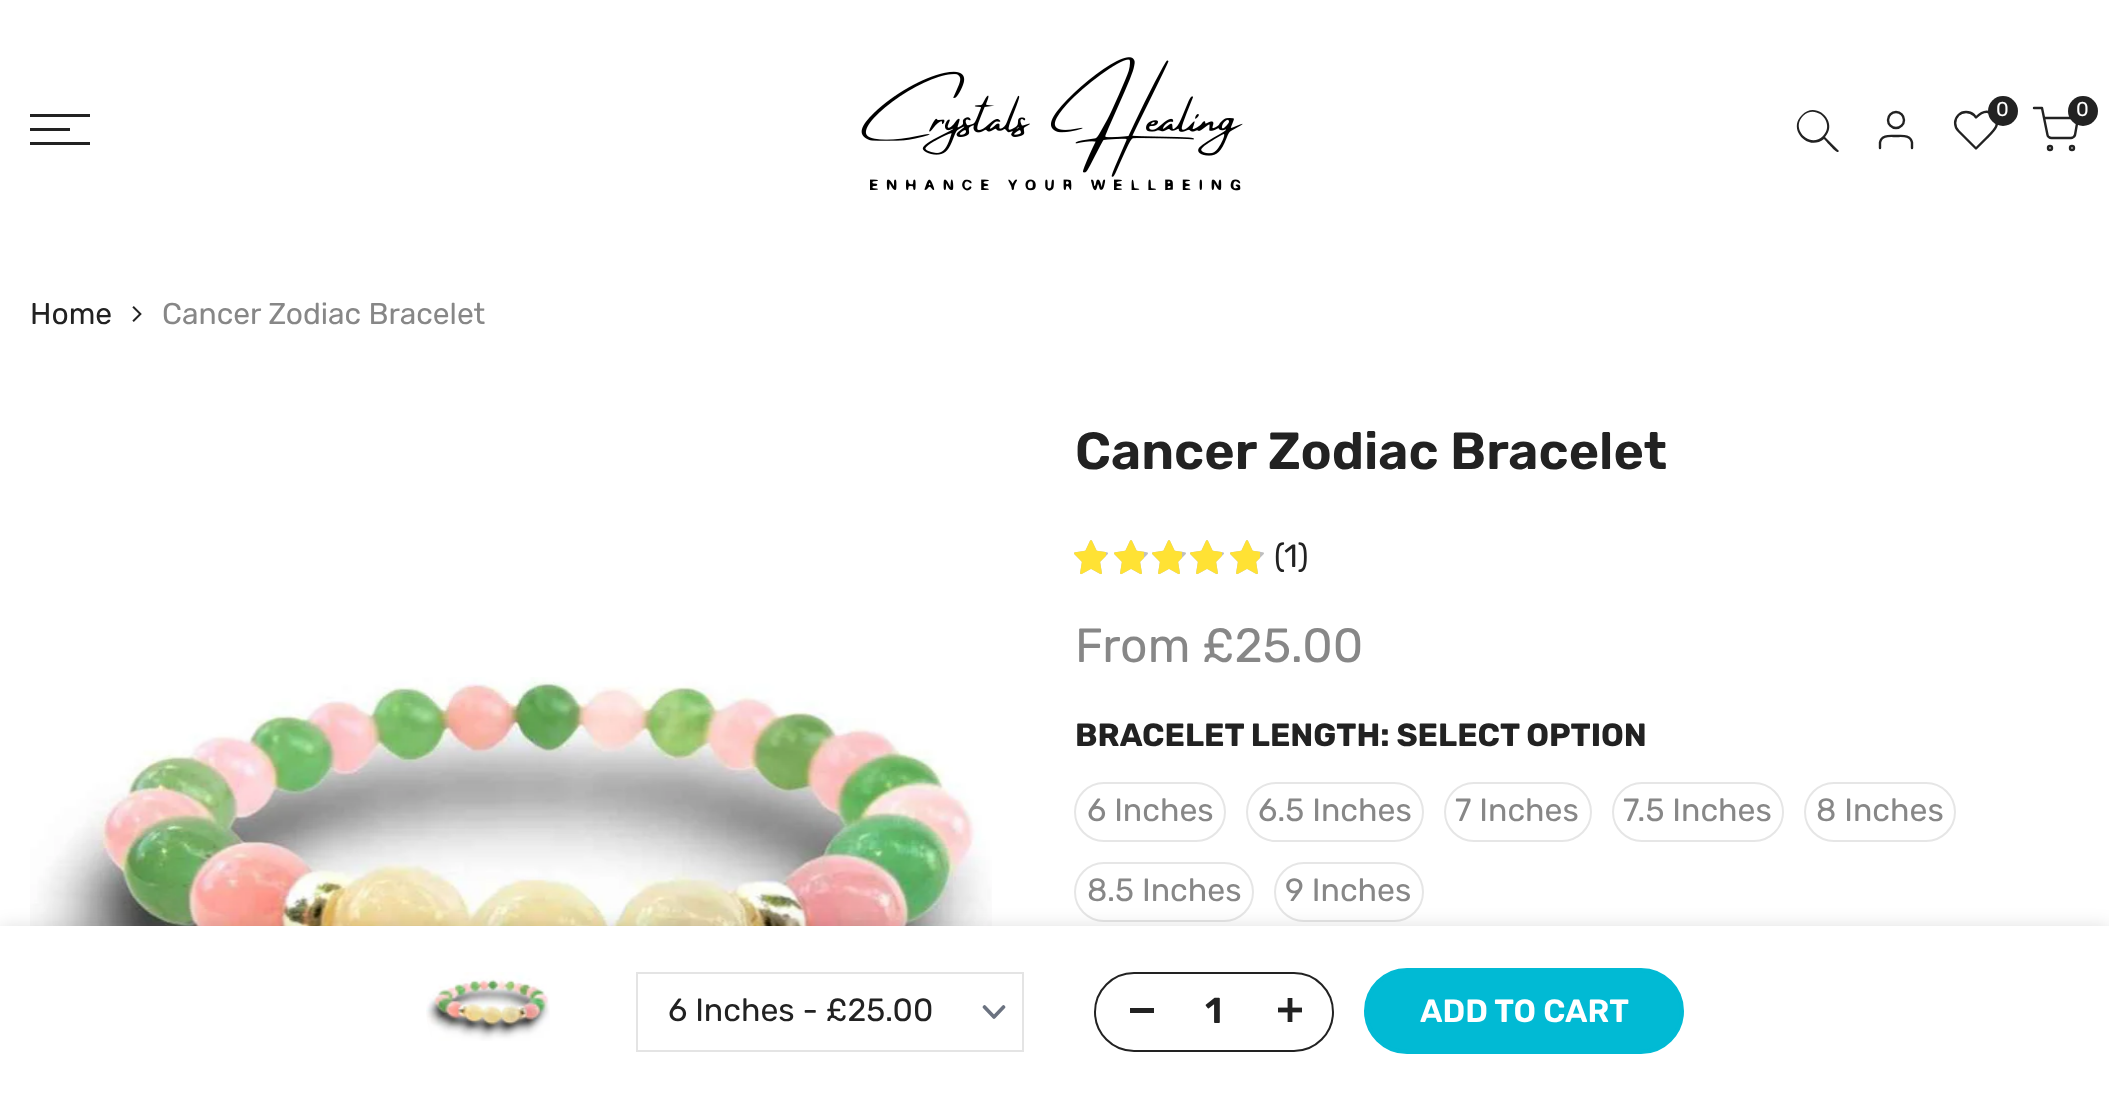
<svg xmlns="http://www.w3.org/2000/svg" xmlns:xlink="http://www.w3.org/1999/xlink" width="2109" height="1096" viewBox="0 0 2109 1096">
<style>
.cls-1{font:20px Rubik;fill:#ffffff}
.cls-2{font:30px Rubik;fill:#222222}
.cls-3{font:30px Rubik;fill:#878787}
.cls-4{font:600 52px Rubik;fill:#222222}
.cls-5{font:32px Rubik;fill:#222222}
.cls-6{font:48px Rubik;fill:#878787}
.cls-7{font:bold 32px Rubik;fill:#222222}
.cls-8{font:32px Rubik;fill:#878787}
.cls-9{font:600 36px Rubik;fill:#222222}
.cls-10{font:600 32px Rubik;fill:#ffffff}
</style>
<rect width="100%" height="100%" fill="#ffffff"/>
<image xlink:href="image0.png" x="861" y="57" width="382" height="134"/>
<path fill="#222222" fill-rule="evenodd" d="M1823 136C1810 149 1790 129 1803 116C1816 103 1836 123 1823 136ZM1824 139C1808 152 1787 129 1802 115C1816 100 1839 122 1825 137L1839 151L1838 152C1836 153 1826 141 1824 139Z"/>
<path fill="none" stroke="#222222" stroke-width="2.4" stroke-linecap="round" stroke-linejoin="round" d="M1912 148V142.5C1910.5 134.5 1902 136 1896 136C1890 136 1881.5 134.5 1880 142.5V148"/>
<circle fill="none" stroke="#222222" stroke-width="2.4" cx="1896" cy="120" r="8"/>
<path fill="none" stroke="#222222" stroke-width="2.4" stroke-linecap="round" stroke-linejoin="round" d="M1993.5 115C1987.5 109 1981 112.5 1976 117.5L1974 115C1969.5 111 1962.5 111 1958.5 115C1954 119.5 1954 126.5 1958.5 131L1976 148.5L1986.5 138C1992.5 132 2002.5 124 1993.5 115Z"/>
<circle fill="#222222" cx="2003" cy="111" r="15"/>
<circle fill="none" stroke="#222222" stroke-width="2.4" cx="2050" cy="148" r="2"/>
<circle fill="none" stroke="#222222" stroke-width="2.4" cx="2072" cy="148" r="2"/>
<path fill="none" stroke="#222222" stroke-width="2.4" stroke-linecap="round" stroke-linejoin="round" d="M2034 108H2042L2047.5 135C2047.5 136.5 2049.5 138 2051.5 138H2071C2072.5 138 2074.5 136.5 2075 135L2078 118H2044"/>
<circle fill="#222222" cx="2083" cy="111" r="15"/>
<rect fill="#222222" x="30" y="114" width="60" height="3"/>
<rect fill="#222222" x="30" y="128" width="40" height="3"/>
<rect fill="#222222" x="30" y="142" width="60" height="3"/>
<image xlink:href="image1.png" x="132" y="306" width="10" height="16"/>
<image xlink:href="image2.png" x="30" y="677" width="962" height="249"/>
<image xlink:href="image3.png" x="1074" y="540" width="34" height="34"/>
<image xlink:href="image4.png" x="1074" y="540" width="32" height="35"/>
<image xlink:href="image3.png" x="1114" y="540" width="34" height="34"/>
<image xlink:href="image5.png" x="1114" y="540" width="30" height="35"/>
<image xlink:href="image3.png" x="1152" y="540" width="34" height="34"/>
<image xlink:href="image5.png" x="1152" y="540" width="30" height="35"/>
<image xlink:href="image3.png" x="1190" y="540" width="34" height="34"/>
<image xlink:href="image4.png" x="1190" y="540" width="32" height="35"/>
<image xlink:href="image3.png" x="1230" y="540" width="34" height="34"/>
<image xlink:href="image5.png" x="1230" y="540" width="30" height="35"/>
<rect fill="none" stroke="#e6e6e6" stroke-width="2" x="1075" y="783" width="150" height="58" rx="29"/>
<rect fill="none" stroke="#e6e6e6" stroke-width="2" x="1247" y="783" width="176" height="58" rx="29"/>
<rect fill="none" stroke="#e6e6e6" stroke-width="2" x="1445" y="783" width="146" height="58" rx="29"/>
<rect fill="none" stroke="#e6e6e6" stroke-width="2" x="1613" y="783" width="170" height="58" rx="29"/>
<rect fill="none" stroke="#e6e6e6" stroke-width="2" x="1805" y="783" width="150" height="58" rx="29"/>
<rect fill="none" stroke="#e6e6e6" stroke-width="2" x="1075" y="863" width="178" height="58" rx="29"/>
<rect fill="none" stroke="#e6e6e6" stroke-width="2" x="1275" y="863" width="148" height="58" rx="29"/>
<rect fill="#000000" fill-opacity="0.12" filter="blur(9px)" x="0" y="926" width="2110" height="170"/>
<rect fill="#ffffff" x="0" y="926" width="2109" height="170"/>
<image xlink:href="image6.png" x="426" y="972" width="124" height="69"/>
<path fill="none" stroke="#6b7280" stroke-width="3.6" stroke-linecap="round" stroke-linejoin="round" d="M984.5 1007L994 1017L1003.5 1007"/>
<rect fill="none" stroke="#e4e4e4" stroke-width="2" x="637" y="973" width="386" height="78"/>
<rect fill="none" stroke="#222222" stroke-width="2" x="1095" y="973" width="238" height="78" rx="39"/>
<rect fill="#222222" x="1130" y="1008" width="24" height="5"/>
<image xlink:href="image7.png" x="1278" y="998" width="24" height="24"/>
<rect fill="#01bad4" stroke="#01bad4" stroke-width="4" x="1366" y="970" width="316" height="82" rx="41"/>
<text class="cls-1" x="1996" y="116">0</text>
<text class="cls-1" x="2076" y="116">0</text>
<text class="cls-2" x="30" y="324">Home</text>
<text class="cls-3" x="162" y="324">Cancer Zodiac Bracelet</text>
<text class="cls-4" x="1075" y="469">Cancer Zodiac Bracelet</text>
<text class="cls-5" x="1274" y="567">(</text>
<text class="cls-5" x="1284" y="567">1)</text>
<text class="cls-6" x="1075" y="662">From £25.00</text>
<text class="cls-7" x="1075" y="746">BRACELET LENGTH: SELECT OPTION</text>
<text class="cls-8" x="1087" y="821">6 Inches</text>
<text class="cls-8" x="1258" y="821">6.5 Inches</text>
<text class="cls-8" x="1455" y="821">7 Inches</text>
<text class="cls-8" x="1623" y="821">7.5 Inches</text>
<text class="cls-8" x="1816" y="821">8 Inches</text>
<text class="cls-8" x="1087" y="901">8.5 Inches</text>
<text class="cls-8" x="1285" y="901">9 Inches</text>
<text class="cls-5" x="668" y="1021">6 Inches - £25.00</text>
<text class="cls-9" x="1205" y="1023">1</text>
<text class="cls-10" x="1420" y="1022">ADD TO CART</text>
</svg>
